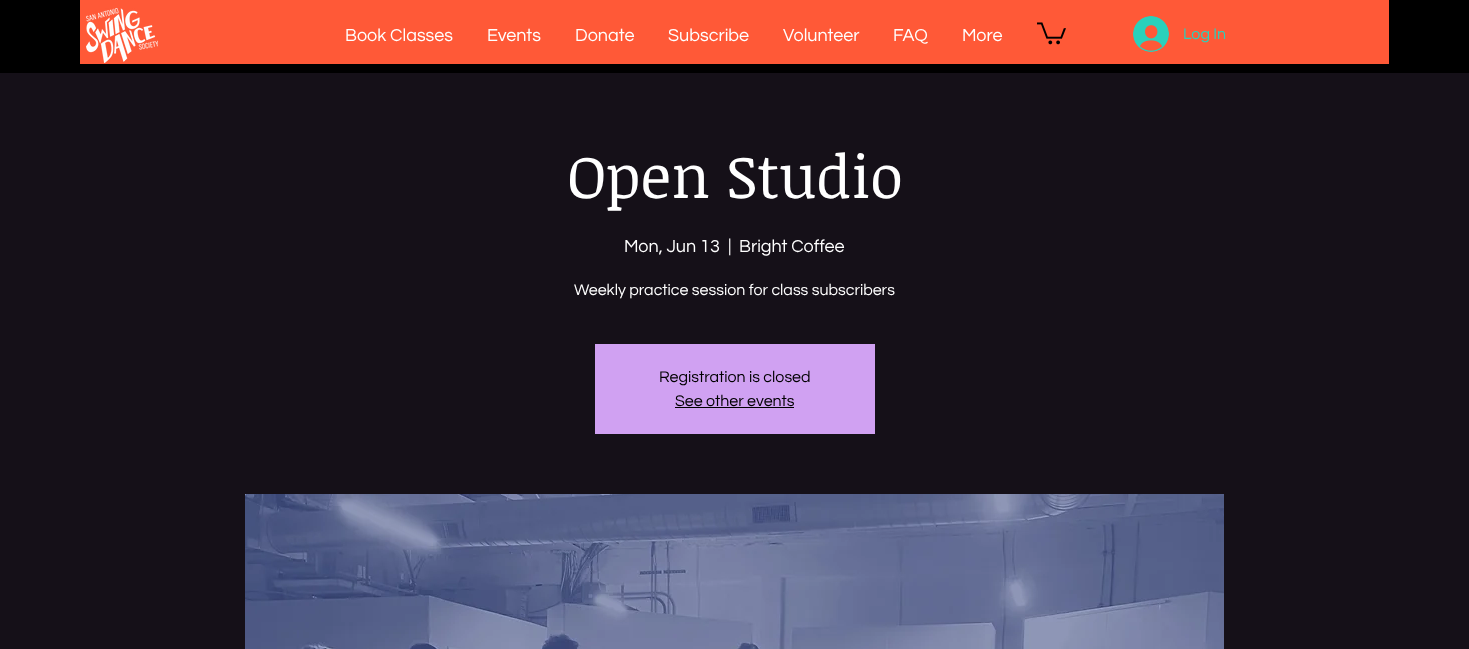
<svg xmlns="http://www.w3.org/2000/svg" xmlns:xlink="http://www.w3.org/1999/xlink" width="1469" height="649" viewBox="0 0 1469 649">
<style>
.cls-1{font:18px Questrial;fill:#ffffff}
.cls-2{font:16px Questrial;fill:#2ad1bb}
.cls-3{font:60px Noticia Text;fill:#ffffff}
.cls-4{font:16px Questrial;fill:#ffffff}
.cls-5{font:16px Questrial;fill:#000000}
</style>
<rect width="100%" height="100%" fill="#000000"/>
<rect fill="#ff5937" x="80" y="0" width="1309" height="64"/>
<image xlink:href="image0.png" x="86" y="8" width="72" height="55"/>
<image xlink:href="image1.png" x="1037" y="22" width="29" height="23"/>
<image xlink:href="image2.png" x="1133" y="16" width="36" height="36"/>
<rect fill="#151018" x="0" y="73" width="1469" height="576"/>
<rect fill="#d0a1f2" x="595" y="344" width="280" height="90"/>
<rect fill="#000000" x="675" y="407" width="119" height="1"/>
<image xlink:href="image3.png" x="245" y="494" width="979" height="155"/>
<text class="cls-1" x="345" y="41">Book Classes</text>
<text class="cls-1" x="487" y="41">Events</text>
<text class="cls-1" x="575" y="41">Donate</text>
<text class="cls-1" x="668" y="41">Subscribe</text>
<text class="cls-1" x="783" y="41">Volunteer</text>
<text class="cls-1" x="893" y="41">FAQ</text>
<text class="cls-1" x="962" y="41">More</text>
<text class="cls-2" x="1183" y="39">Log In</text>
<text class="cls-3" x="567" y="198">Open Studio</text>
<text class="cls-1" x="624" y="252">Mon, Jun 13</text>
<text class="cls-1" x="728" y="252">|</text>
<text class="cls-1" x="739" y="252">Bright Coffee</text>
<text class="cls-4" x="574" y="295">Weekly practice session for class subscribers</text>
<text class="cls-5" x="659" y="382">Registration is closed</text>
<text class="cls-5" x="675" y="406">See other events</text>
</svg>
